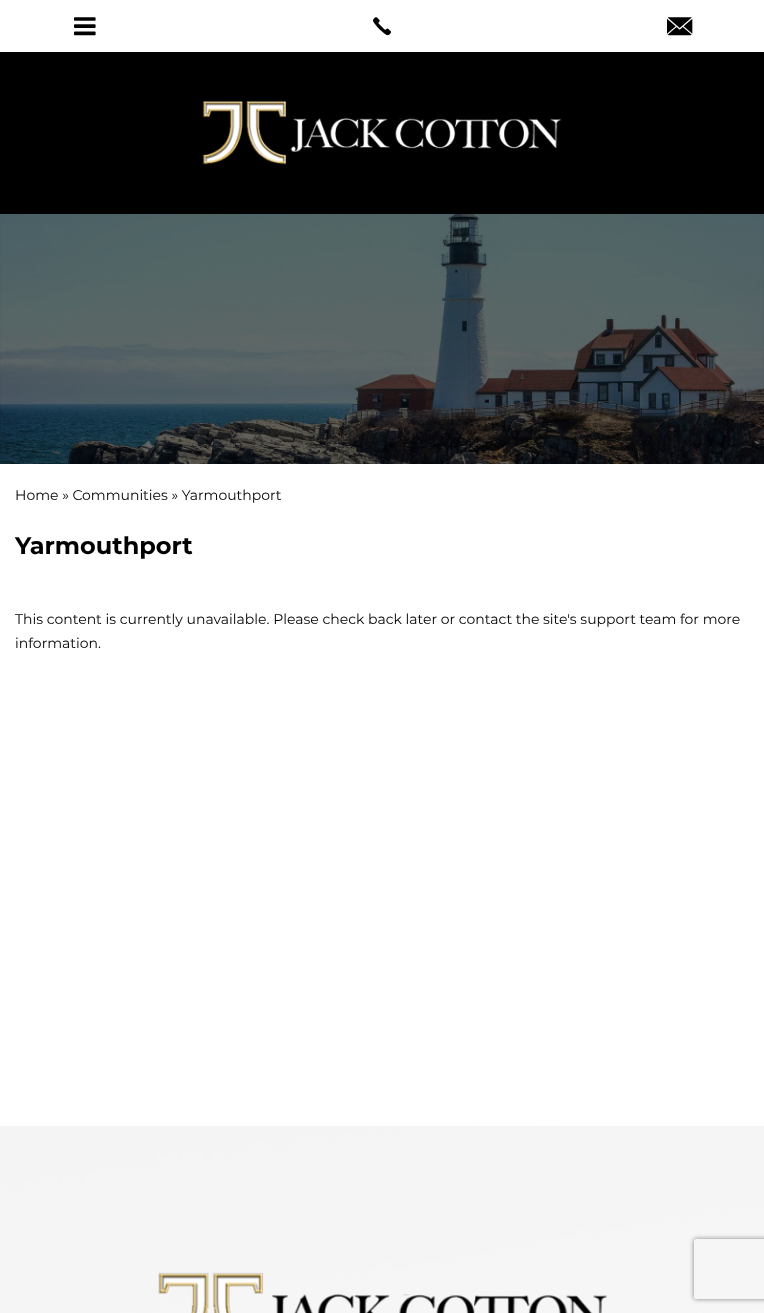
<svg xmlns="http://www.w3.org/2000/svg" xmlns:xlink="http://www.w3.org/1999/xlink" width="764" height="1313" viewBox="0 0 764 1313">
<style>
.cls-1{font:18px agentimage;fill:#000000}
.cls-2{font:14px Montserrat;fill:#000000}
.cls-3{font:bold 24px Montserrat;fill:#000000}
</style>
<defs>
<clipPath id="clip1"><path d="M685 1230H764V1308H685ZM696 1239H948C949 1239 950 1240 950 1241V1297C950 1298 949 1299 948 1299H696C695 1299 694 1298 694 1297V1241C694 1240 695 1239 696 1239Z" clip-rule="evenodd"/></clipPath>
</defs>
<rect width="100%" height="100%" fill="#ffffff"/>
<rect fill="#000000" x="0" y="52" width="764" height="162"/>
<image xlink:href="image0.png" x="202" y="100" width="360" height="65"/>
<image xlink:href="image1.png" x="0" y="214" width="764" height="250"/>
<image xlink:href="image2.png" x="0" y="1126" width="764" height="187"/>
<image xlink:href="image3.png" x="158" y="1272" width="449" height="41"/>
<g clip-path="url(#clip1)">
<rect fill="#808080" filter="blur(2.5px)" x="694" y="1239" width="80" height="60" rx="2"/>
</g>
<text class="cls-1" x="74" y="34">򰁰</text>
<text class="cls-1" x="373" y="34">򰁩</text>
<text class="cls-1" x="667" y="34">򰄢</text>
<text class="cls-2" x="15" y="500">Home » Communities » Yarmouthport</text>
<text class="cls-3" x="15" y="554">Yarmouthport</text>
<text class="cls-2"><tspan x="15" y="624">This content is currently unavailable. Please check back later or contact the site's support team for more</tspan><tspan x="15" y="648">information.</tspan></text>
</svg>
